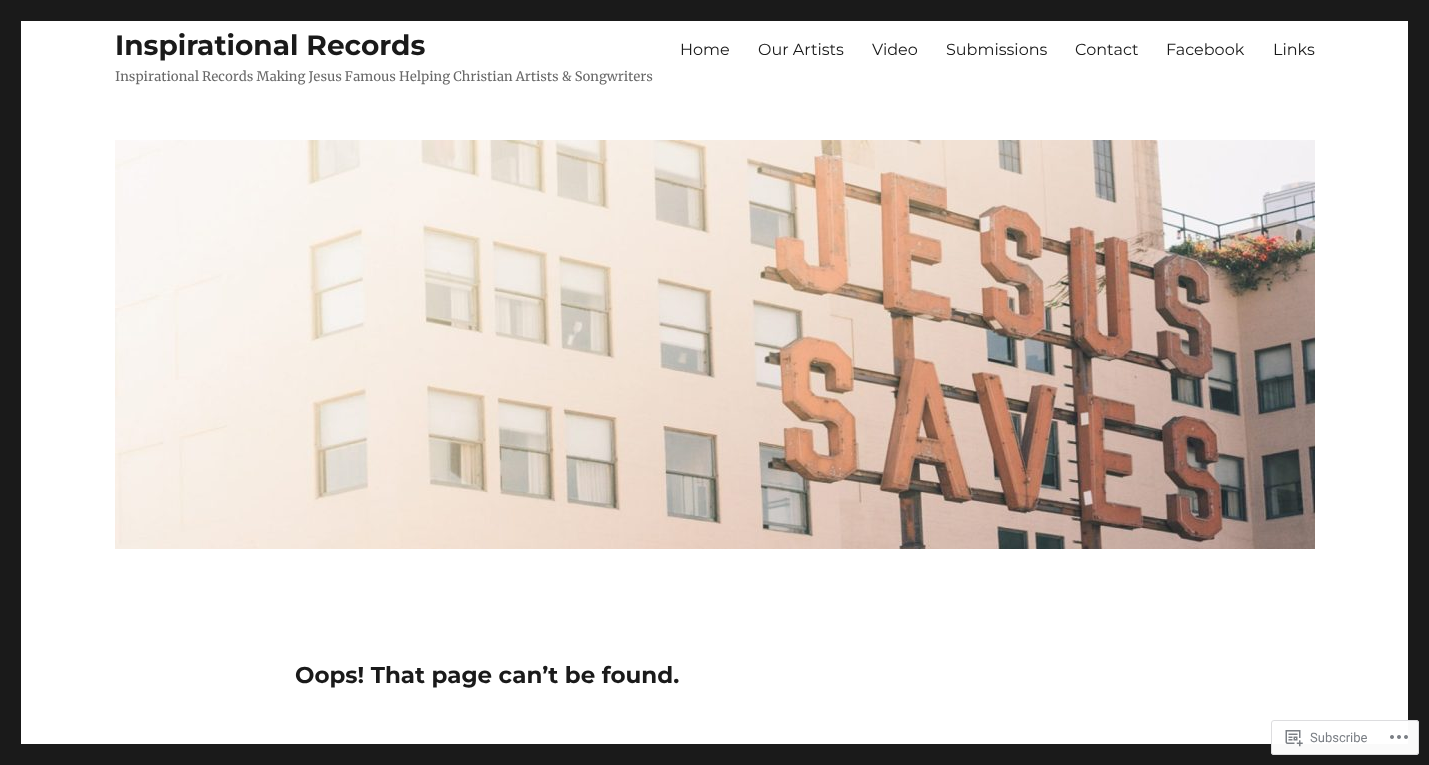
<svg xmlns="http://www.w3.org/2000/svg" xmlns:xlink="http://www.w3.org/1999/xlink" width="1429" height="765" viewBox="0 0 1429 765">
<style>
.cls-1{font:100 28px Montserrat;fill:#1a1a1a}
.cls-2{font:13px Merriweather;fill:#686868}
.cls-3{font:100 16px 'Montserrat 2';fill:#1a1a1a}
.cls-4{font:100 23px Montserrat;fill:#1a1a1a}
.cls-5{font:13px Roboto;fill:#7b7f85}
</style>
<rect width="100%" height="100%" fill="#1a1a1a"/>
<rect fill="#ffffff" x="21" y="21" width="1387" height="723"/>
<image xlink:href="image0.png" x="115" y="140" width="1200" height="409"/>
<rect fill="#ffffff" fill-opacity="0.98" x="1271" y="720" width="148" height="35" rx="3"/>
<rect fill="none" stroke="#dcdcde" stroke-opacity="0.98" x="1271.5" y="720.5" width="147" height="34" rx="2.5"/>
<image xlink:href="image1.png" x="1285" y="730" width="18" height="17"/>
<image xlink:href="image2.png" x="1390" y="735" width="18" height="4"/>
<text class="cls-1" x="115" y="55">Inspirational Records</text>
<text class="cls-2" x="115" y="81">Inspirational Records Making Jesus Famous Helping Christian Artists &amp; Songwriters</text>
<text class="cls-3" x="680" y="55">Home</text>
<text class="cls-3" x="758" y="55">Our Artists</text>
<text class="cls-3" x="872" y="55">Video</text>
<text class="cls-3" x="946" y="55">Submissions</text>
<text class="cls-3" x="1075" y="55">Contact</text>
<text class="cls-3" x="1166" y="55">Facebook</text>
<text class="cls-3" x="1273" y="55">Links</text>
<text class="cls-4" x="295" y="683">Oops! That page can’t be found.</text>
<text class="cls-5" x="1310" y="742">Subscribe</text>
</svg>
